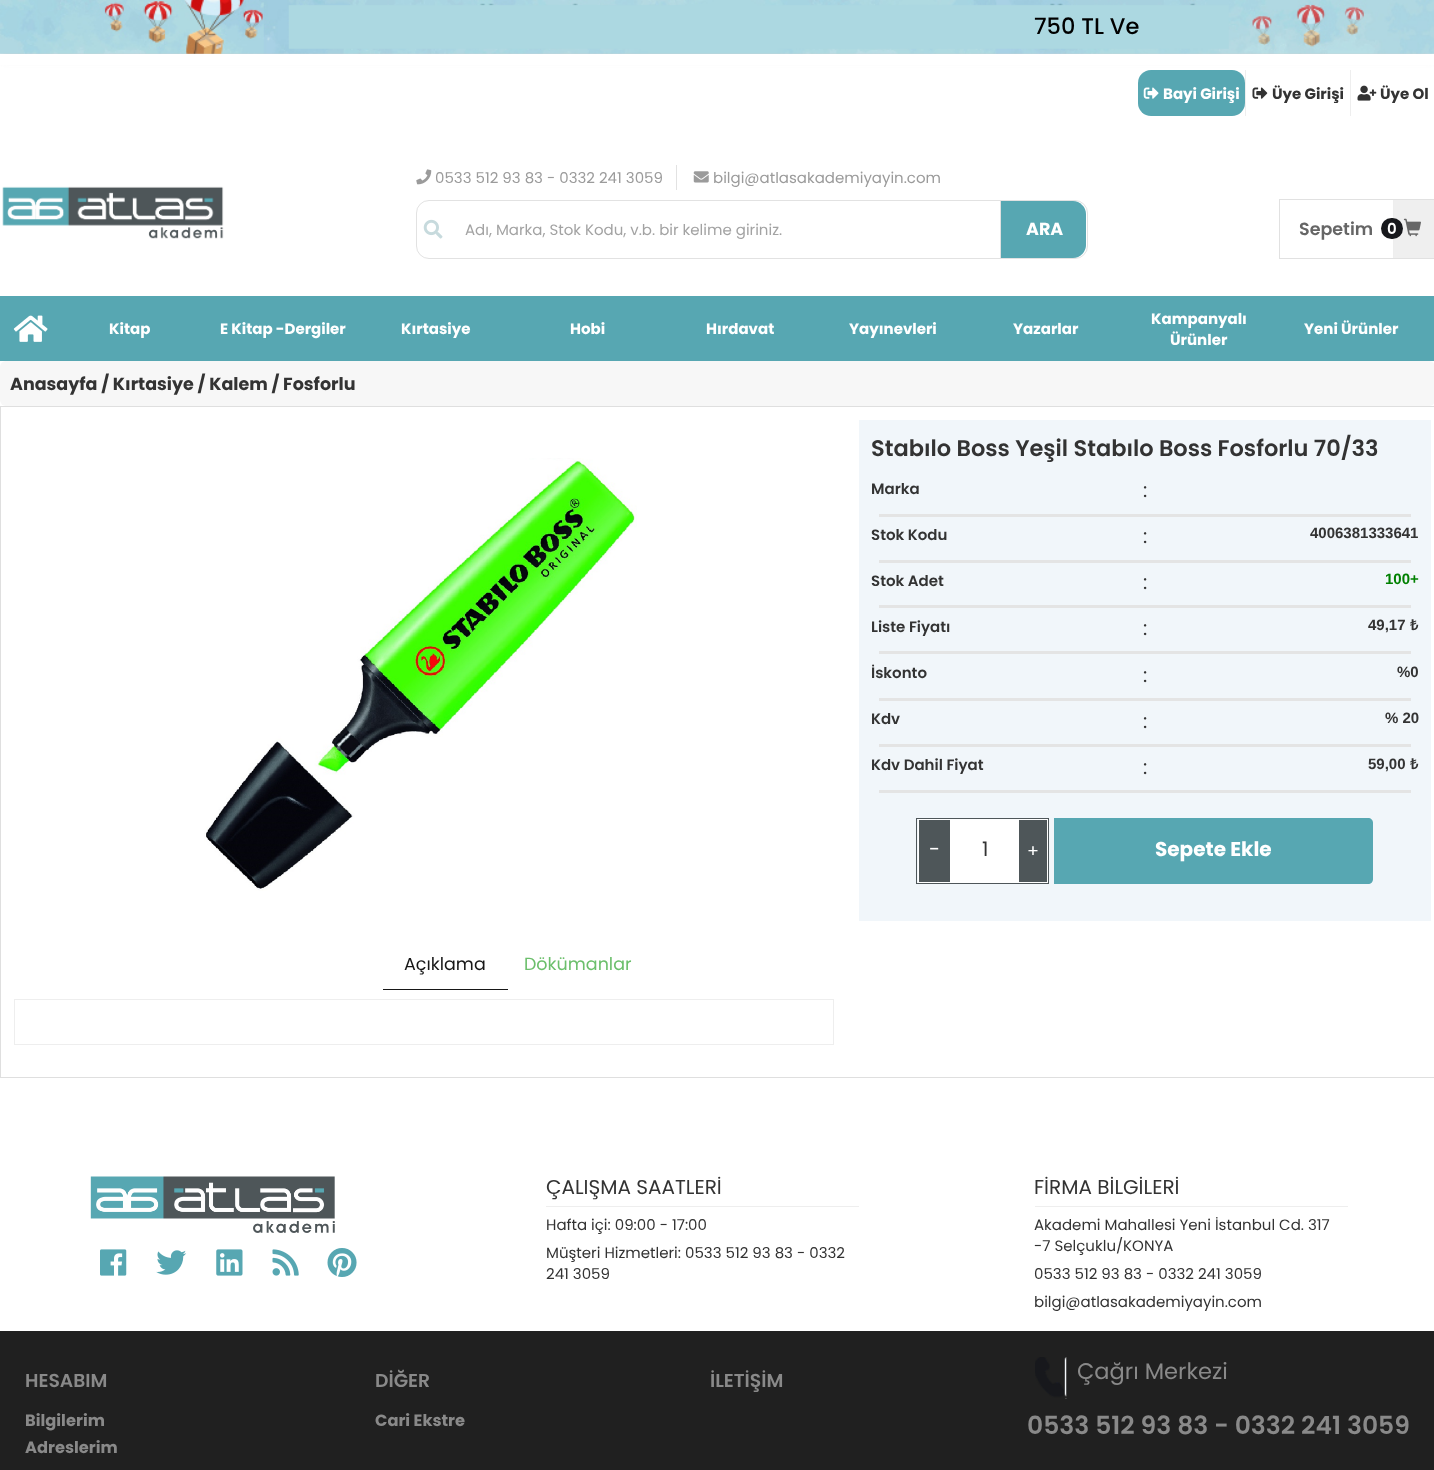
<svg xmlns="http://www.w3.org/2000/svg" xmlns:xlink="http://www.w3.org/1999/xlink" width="1434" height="1470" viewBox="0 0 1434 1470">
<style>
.cls-1{font:500 22.5px Poppins;fill:#000000}
.cls-2{font:bold 15px Poppins;fill:#ffffff}
.cls-3{font:bold 15px Poppins;fill:#333333}
.cls-4{font:15px Poppins;fill:#9b9b9b}
.cls-5{font:15px Poppins;fill:#a3a3a3}
.cls-6{font:bold 17.5px Poppins;fill:#ffffff}
.cls-7{font:600 17.5px Poppins;fill:#666666}
.cls-8{font:600 15px Poppins;fill:#ffffff}
.cls-9{font:bold 17.5px Poppins;fill:#333333}
.cls-10{font:600 22.5px Poppins;fill:#333333}
.cls-11{font:600 15px Poppins;fill:#333333}
.cls-12{font:20px Poppins;fill:#333333}
.cls-13{font:bold 15px Liberation Sans;fill:#333333}
.cls-14{font:bold 15px Liberation Sans;fill:#008000}
.cls-15{font:600 15px Noto Sans;fill:#333333}
.cls-16{font:20px Poppins;fill:#ffffff}
.cls-17{font:17.5px Poppins;fill:#ffffff}
.cls-18{font:bold 20px Poppins;fill:#ffffff}
.cls-19{font:17.5px Poppins;fill:#171717}
.cls-20{font:17.5px Poppins;fill:#6cbf6c}
.cls-21{font:15px Poppins;fill:#333333}
.cls-22{font:600 18.75px Poppins;fill:#898989}
.cls-23{font:bold 16.25px Poppins;fill:#898989}
.cls-24{font:22.5px Poppins;fill:#898989}
.cls-25{font:600 25px Poppins;fill:#898989}
</style>
<rect width="100%" height="100%" fill="#ffffff"/>
<rect fill="#cccccc" filter="blur(4.5px)" x="0" y="4" width="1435" height="54"/>
<image xlink:href="image0.png" x="0" y="0" width="1434" height="54"/>
<rect fill="#ffffff" x="0" y="54" width="1434" height="11"/>
<rect fill="#57a7b2" x="1138" y="70" width="107" height="46" rx="13"/>
<image xlink:href="image1.png" x="1143" y="87" width="16" height="12"/>
<rect fill="#eeeeee" x="1245" y="70" width="1" height="46"/>
<image xlink:href="image2.png" x="1252" y="87" width="16" height="12"/>
<rect fill="#eeeeee" x="1350" y="70" width="1" height="46"/>
<image xlink:href="image3.png" x="1357" y="85" width="20" height="16"/>
<image xlink:href="image4.png" x="2" y="186" width="222" height="53"/>
<rect fill="#e2e2e2" x="676" y="165" width="1" height="25"/>
<image xlink:href="image5.png" x="416" y="169" width="16" height="16"/>
<image xlink:href="image6.png" x="693" y="171" width="16" height="12"/>
<rect fill="none" stroke="#e2e2e2" x="416.5" y="200.5" width="671" height="58" rx="12.5"/>
<image xlink:href="image7.png" x="423" y="219" width="20" height="20"/>
<path fill="#57a7b2" d="M1000 201H1073C1080 201 1086 207 1086 214V245C1086 252 1080 258 1073 258H1000Z"/>
<rect fill="#e0e0e0" x="1000" y="201" width="1" height="57"/>
<rect fill="#efefef" x="1394" y="200" width="40" height="58"/>
<rect fill="none" stroke="#e1e1e1" x="1279.5" y="199.5" width="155" height="59"/>
<rect fill="#eeeeee" x="1393" y="200" width="1" height="58"/>
<rect fill="#17181c" x="1381" y="218" width="22" height="21" rx="10.5"/>
<image xlink:href="image8.png" x="1403" y="218" width="18" height="19"/>
<rect fill="#57a7b2" x="0" y="296" width="1434" height="65"/>
<image xlink:href="image9.png" x="13" y="315" width="35" height="27"/>
<rect fill="#f7f7f7" x="0" y="361" width="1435" height="45" rx="6"/>
<rect fill="none" stroke="#dfdfdf" x="0.5" y="406.5" width="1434" height="671"/>
<rect fill="#f1f6fa" x="859" y="420" width="572" height="501"/>
<rect fill="#e4e4e4" x="879" y="514" width="532" height="3"/>
<rect fill="#e4e4e4" x="879" y="560" width="532" height="3"/>
<rect fill="#e4e4e4" x="879" y="605" width="532" height="3"/>
<rect fill="#e4e4e4" x="879" y="651" width="532" height="3"/>
<rect fill="#e4e4e4" x="879" y="698" width="532" height="3"/>
<rect fill="#e4e4e4" x="879" y="744" width="532" height="3"/>
<rect fill="#e4e4e4" x="879" y="790" width="532" height="3"/>
<rect fill="none" stroke="#4e5659" x="916.5" y="818.5" width="132" height="65"/>
<rect fill="#4e5659" stroke="#ffffff" x="918.5" y="819.5" width="32" height="63"/>
<rect fill="#ffffff" x="951" y="819" width="67" height="64"/>
<rect fill="#4e5659" stroke="#ffffff" x="1018.5" y="819.5" width="29" height="63"/>
<path fill="#57a7b2" d="M1054 818H1368C1371 818 1373 820 1373 823V879C1373 882 1371 884 1368 884H1054Z"/>
<image xlink:href="image10.png" x="204" y="458" width="433" height="433"/>
<rect fill="#171717" x="383" y="989" width="125" height="1"/>
<rect fill="none" stroke="#eeeeee" x="14.5" y="999.5" width="819" height="45"/>
<image xlink:href="image11.png" x="90" y="1176" width="245" height="57"/>
<image xlink:href="image12.png" x="100" y="1249" width="27" height="27"/>
<image xlink:href="image13.png" x="156" y="1250" width="31" height="25"/>
<image xlink:href="image14.png" x="216" y="1249" width="27" height="27"/>
<image xlink:href="image15.png" x="272" y="1249" width="27" height="27"/>
<image xlink:href="image16.png" x="327" y="1248" width="30" height="29"/>
<rect fill="#eeeeee" x="546" y="1206" width="313" height="1"/>
<rect fill="#eeeeee" x="1035" y="1206" width="313" height="1"/>
<rect fill="#202020" x="0" y="1331" width="1434" height="139"/>
<image xlink:href="image17.png" x="1035" y="1357" width="32" height="42"/>
<text class="cls-1" x="1034" y="34">750 TL Ve</text>
<text class="cls-2" x="1163" y="99">Bayi Girişi</text>
<text class="cls-3" x="1272" y="99">Üye Girişi</text>
<text class="cls-3" x="1380" y="99">Üye Ol</text>
<text class="cls-4" x="435" y="183">0533 512 93 83 - 0332 241 3059</text>
<text class="cls-4" x="713" y="183">bilgi@atlasakademiyayin.com</text>
<text class="cls-5" x="465" y="235">Adı, Marka, Stok Kodu, v.b. bir kelime giriniz.</text>
<text class="cls-6" x="1026" y="235">ARA</text>
<text class="cls-7" x="1299" y="235">Sepetim</text>
<text class="cls-8" x="1387" y="234">0</text>
<text class="cls-2" x="109" y="334">Kitap</text>
<text class="cls-2" x="220" y="334">E Kitap -Dergiler</text>
<text class="cls-2" x="401" y="334">Kırtasiye</text>
<text class="cls-2" x="570" y="334">Hobi</text>
<text class="cls-2" x="706" y="334">Hırdavat</text>
<text class="cls-2" x="849" y="334">Yayınevleri</text>
<text class="cls-2" x="1013" y="334">Yazarlar</text>
<text class="cls-2" x="1151" y="324">Kampanyalı</text>
<text class="cls-2" x="1170" y="345">Ürünler</text>
<text class="cls-2" x="1304" y="334">Yeni Ürünler</text>
<text class="cls-9" x="10" y="390">Anasayfa / Kırtasiye / Kalem / Fosforlu</text>
<text class="cls-10" x="871" y="456">Stabılo Boss Yeşil Stabılo Boss Fosforlu 70/33</text>
<text class="cls-11" x="871" y="494">Marka</text>
<text class="cls-12" x="1143" y="497">:</text>
<text class="cls-11" x="871" y="540">Stok Kodu</text>
<text class="cls-12" x="1143" y="543">:</text>
<text class="cls-13" x="1310" y="538">4006381333641</text>
<text class="cls-11" x="871" y="586">Stok Adet</text>
<text class="cls-12" x="1143" y="589">:</text>
<text class="cls-14" x="1385" y="584">100+</text>
<text class="cls-11" x="871" y="632">Liste Fiyatı</text>
<text class="cls-12" x="1143" y="635">:</text>
<text class="cls-13" x="1368" y="630">49,17</text>
<text class="cls-15" x="1410" y="630">₺</text>
<text class="cls-11" x="871" y="678">İskonto</text>
<text class="cls-12" x="1143" y="682">:</text>
<text class="cls-13" x="1397" y="677">%0</text>
<text class="cls-11" x="871" y="724">Kdv</text>
<text class="cls-12" x="1143" y="728">:</text>
<text class="cls-13" x="1385" y="723">% 20</text>
<text class="cls-11" x="871" y="770">Kdv Dahil Fiyat</text>
<text class="cls-12" x="1143" y="774">:</text>
<text class="cls-13" x="1368" y="769">59,00</text>
<text class="cls-15" x="1410" y="769">₺</text>
<text class="cls-16" x="929" y="856">-</text>
<text class="cls-12" x="982" y="856">1</text>
<text class="cls-17" x="1027" y="857">+</text>
<text class="cls-18" x="1155" y="856">Sepete Ekle</text>
<text class="cls-19" x="404" y="970">Açıklama</text>
<text class="cls-20" x="524" y="970">Dökümanlar</text>
<text class="cls-12" x="546" y="1194">ÇALIŞMA SAATLERİ</text>
<text class="cls-21"><tspan x="546" y="1230">Hafta içi: 09:00 - 17:00</tspan><tspan x="546" y="1258">Müşteri Hizmetleri: 0533 512 93 83 - 0332</tspan><tspan x="546" y="1279">241 3059</tspan></text>
<text class="cls-12" x="1034" y="1194">FİRMA BİLGİLERİ</text>
<text class="cls-21"><tspan x="1034" y="1230">Akademi Mahallesi Yeni İstanbul Cd. 317</tspan><tspan x="1034" y="1251">-7 Selçuklu/KONYA</tspan><tspan x="1034" y="1279">0533 512 93 83 - 0332 241 3059</tspan><tspan x="1034" y="1307">bilgi@atlasakademiyayin.com</tspan></text>
<text class="cls-22" x="25" y="1387">HESABIM</text>
<text class="cls-23"><tspan x="25" y="1426">Bilgilerim</tspan><tspan x="25" y="1453">Adreslerim</tspan></text>
<text class="cls-22" x="375" y="1387">DİĞER</text>
<text class="cls-23" x="375" y="1426">Cari Ekstre</text>
<text class="cls-22" x="710" y="1387">İLETİŞİM</text>
<text class="cls-24" x="1077" y="1379">Çağrı Merkezi</text>
<text class="cls-25" x="1027" y="1434">0533 512 93 83 - 0332 241 3059</text>
</svg>
